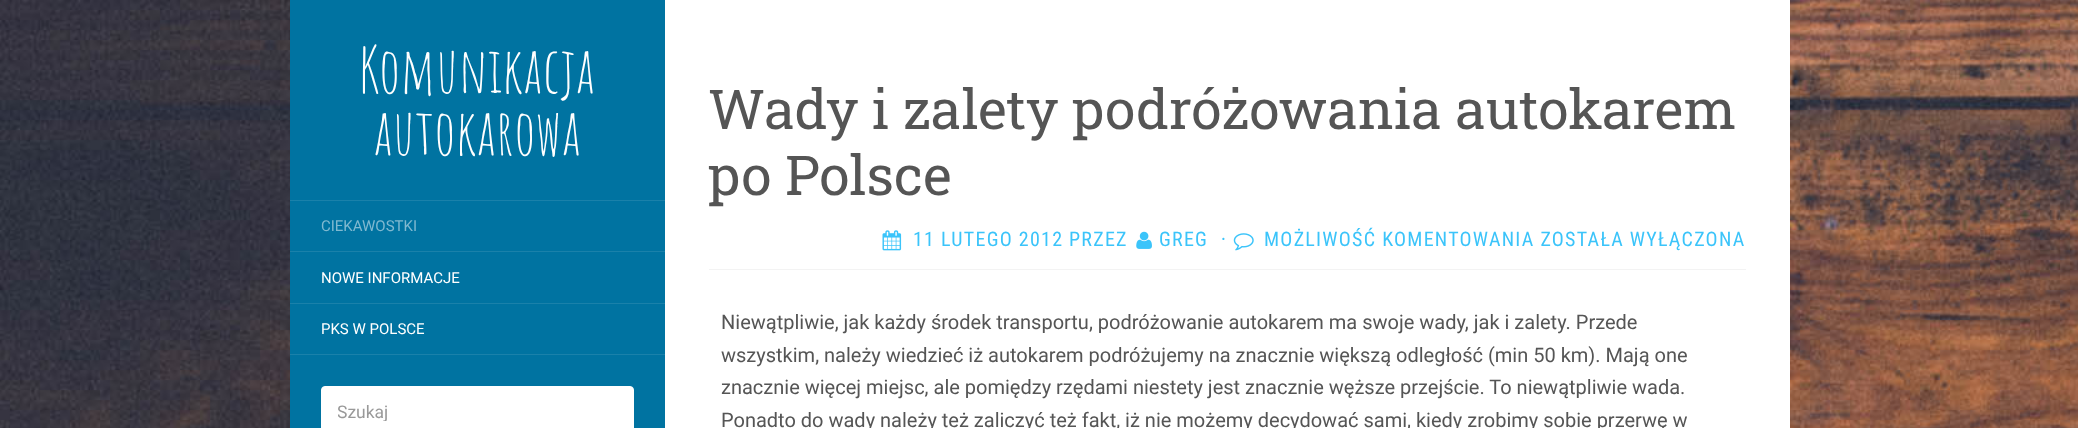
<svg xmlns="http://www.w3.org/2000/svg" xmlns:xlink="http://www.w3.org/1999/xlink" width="2078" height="428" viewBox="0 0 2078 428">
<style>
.cls-1{font:62.5px Amatic SC;fill:#ffffff}
.cls-2{font:15px Roboto;fill:#80b9d0}
.cls-3{font:15px Roboto;fill:#ffffff}
.cls-4{font:17.5px Roboto;fill:#999999}
.cls-5{font:55px Roboto Slab;fill:#555555}
.cls-6{font:20px Roboto Condensed;letter-spacing:1.25px;fill:#3bc4fa}
.cls-7{font:20px Roboto;fill:#555555}
</style>
<defs>
<clipPath id="clip1"><rect x="338" y="401" width="280" height="20"/></clipPath>
</defs>
<rect width="100%" height="100%" fill="#ffffff"/>
<image xlink:href="image0.png" x="0" y="0" width="2078" height="428"/>
<rect fill="#ffffff" x="665" y="0" width="1125" height="428"/>
<rect fill="#0073a1" x="290" y="0" width="375" height="428"/>
<rect fill="#1a81aa" x="290" y="200" width="375" height="1"/>
<rect fill="#1a81aa" x="290" y="251" width="375" height="1"/>
<rect fill="#1a81aa" x="290" y="303" width="375" height="1"/>
<rect fill="#1a81aa" x="290" y="354" width="375" height="1"/>
<rect fill="#ffffff" stroke="#ffffff" x="321.5" y="386.5" width="312" height="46" rx="3.5"/>
<rect fill="#f3f3f3" x="709" y="269" width="1037" height="1"/>
<image xlink:href="image1.png" x="882" y="230" width="20" height="21"/>
<image xlink:href="image2.png" x="1136" y="231" width="16" height="18"/>
<image xlink:href="image3.png" x="1233" y="233" width="21" height="18"/>
<text class="cls-1" x="359" y="93">Komunikacja</text>
<text class="cls-1" x="373" y="155">autokarowa</text>
<text class="cls-2" x="321" y="231">CIEKAWOSTKI</text>
<text class="cls-3" x="321" y="283">NOWE INFORMACJE</text>
<text class="cls-3" x="321" y="334">PKS W POLSCE</text>
<g clip-path="url(#clip1)">
<text class="cls-4" x="337" y="418">Szukaj</text>
</g>
<text class="cls-5"><tspan x="708" y="129">Wady i zalety podróżowania autokarem</tspan><tspan x="708" y="195">po Polsce</tspan></text>
<text class="cls-6" x="913" y="246">11 LUTEGO 2012</text>
<text class="cls-6" x="1069" y="246">PRZEZ</text>
<text class="cls-6" x="1159" y="246">GREG</text>
<text class="cls-6" x="1221" y="246">·</text>
<text class="cls-6" x="1264" y="246">MOŻLIWOŚĆ KOMENTOWANIA ZOSTAŁA WYŁĄCZONA</text>
<text class="cls-7"><tspan x="721" y="329">Niewątpliwie, jak każdy środek transportu, podróżowanie autokarem ma swoje wady, jak i zalety. Przede</tspan><tspan x="721" y="362">wszystkim, należy wiedzieć iż autokarem podróżujemy na znacznie większą odległość (min 50 km). Mają one</tspan><tspan x="721" y="394">znacznie więcej miejsc, ale pomiędzy rzędami niestety jest znacznie węższe przejście. To niewątpliwie wada.</tspan><tspan x="721" y="427">Ponadto do wady należy też zaliczyć też fakt, iż nie możemy decydować sami, kiedy zrobimy sobie przerwę w</tspan></text>
</svg>
